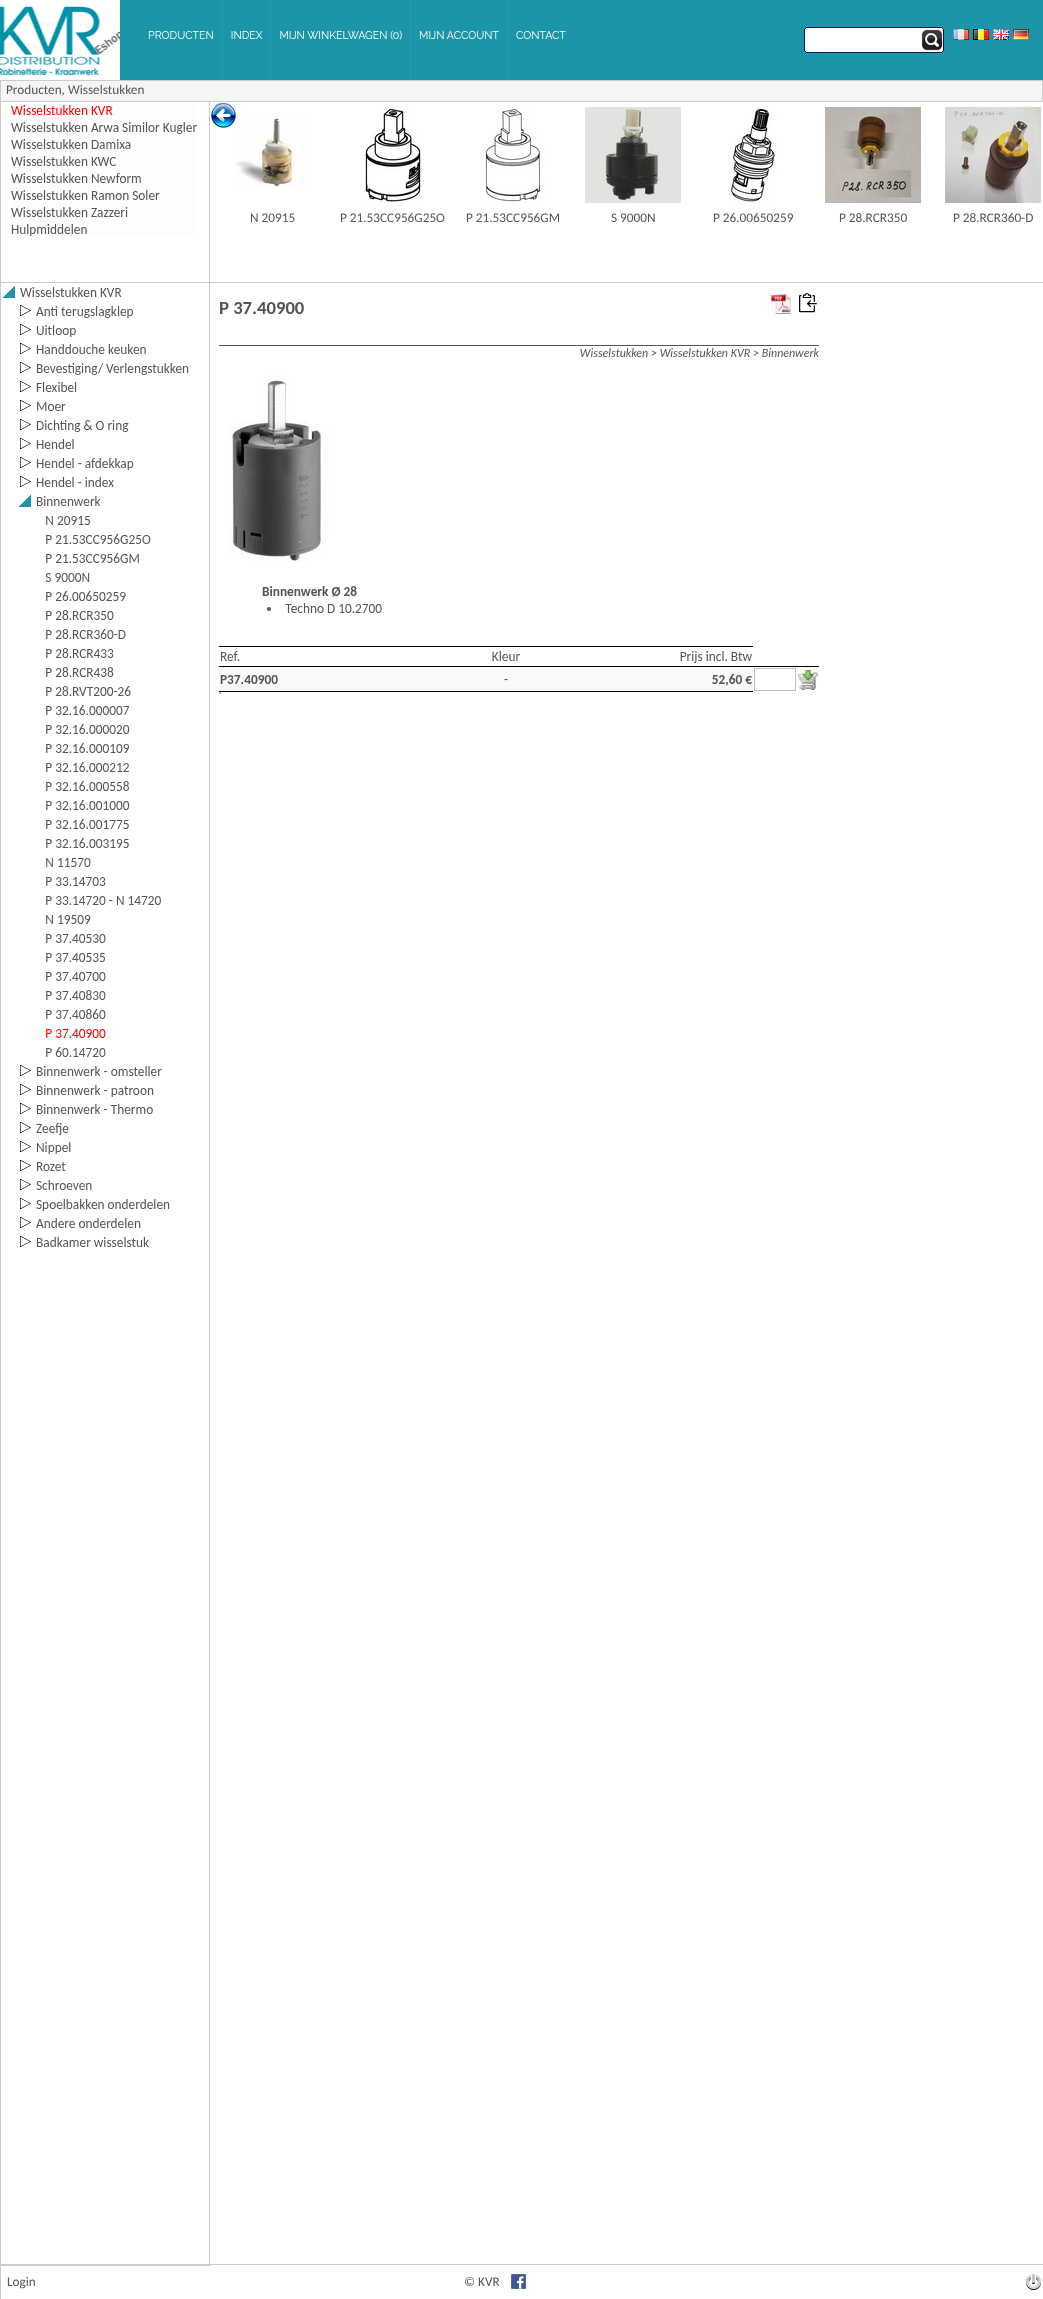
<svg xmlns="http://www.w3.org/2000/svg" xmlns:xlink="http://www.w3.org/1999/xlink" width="1043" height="2299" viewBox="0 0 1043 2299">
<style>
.cls-1{font:13.25px Carlito;fill:#555555}
</style>
<rect width="100%" height="100%" fill="#ffffff"/>
<image xlink:href="image0.png" x="0" y="6" width="120" height="70"/>
<rect fill="#1c95a8" x="120" y="0" width="923" height="80"/>
<image xlink:href="image1.png" x="148" y="0" width="418" height="80"/>
<image xlink:href="image2.png" x="804" y="27" width="225" height="26"/>
<rect fill="#f4f5f5" stroke="#cbcbcb" x="0.5" y="80.5" width="1042" height="21"/>
<rect fill="none" stroke="#cbcbcb" x="0.5" y="101.5" width="209" height="181"/>
<image xlink:href="image3.png" x="11" y="105" width="186" height="131"/>
<rect fill="none" stroke="#cbcbcb" x="0.5" y="282.5" width="209" height="1983"/>
<rect fill="none" stroke="#cbcbcb" x="209.5" y="101.5" width="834" height="181"/>
<image xlink:href="image5.png" x="235" y="116" width="70" height="71"/>
<image xlink:href="image4.png" x="211" y="103" width="25" height="25"/>
<image xlink:href="image6.png" x="362" y="107" width="62" height="96"/>
<image xlink:href="image7.png" x="484" y="108" width="61" height="95"/>
<image xlink:href="image8.png" x="585" y="107" width="96" height="96"/>
<image xlink:href="image9.png" x="729" y="107" width="48" height="96"/>
<image xlink:href="image10.png" x="825" y="107" width="96" height="96"/>
<image xlink:href="image11.png" x="945" y="107" width="96" height="96"/>
<image xlink:href="image12.png" x="3" y="286" width="186" height="961"/>
<image xlink:href="image13.png" x="219" y="293" width="600" height="401"/>
<rect fill="none" stroke="#cbcbcb" x="0.5" y="2264.5" width="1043" height="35"/>
<image xlink:href="image14.png" x="511" y="2274" width="15" height="15"/>
<image xlink:href="image15.png" x="1026" y="2274" width="15" height="16"/>
<text class="cls-1" x="6" y="94">Producten, Wisselstukken</text>
<text class="cls-1" x="250" y="222">N 20915</text>
<text class="cls-1" x="340" y="222">P 21.53CC956G25O</text>
<text class="cls-1" x="466" y="222">P 21.53CC956GM</text>
<text class="cls-1" x="611" y="222">S 9000N</text>
<text class="cls-1" x="713" y="222">P 26.00650259</text>
<text class="cls-1" x="839" y="222">P 28.RCR350</text>
<text class="cls-1" x="953" y="222">P 28.RCR360-D</text>
<text class="cls-1" x="7" y="2286">Login</text>
<text class="cls-1" x="464" y="2286">© KVR</text>
</svg>
